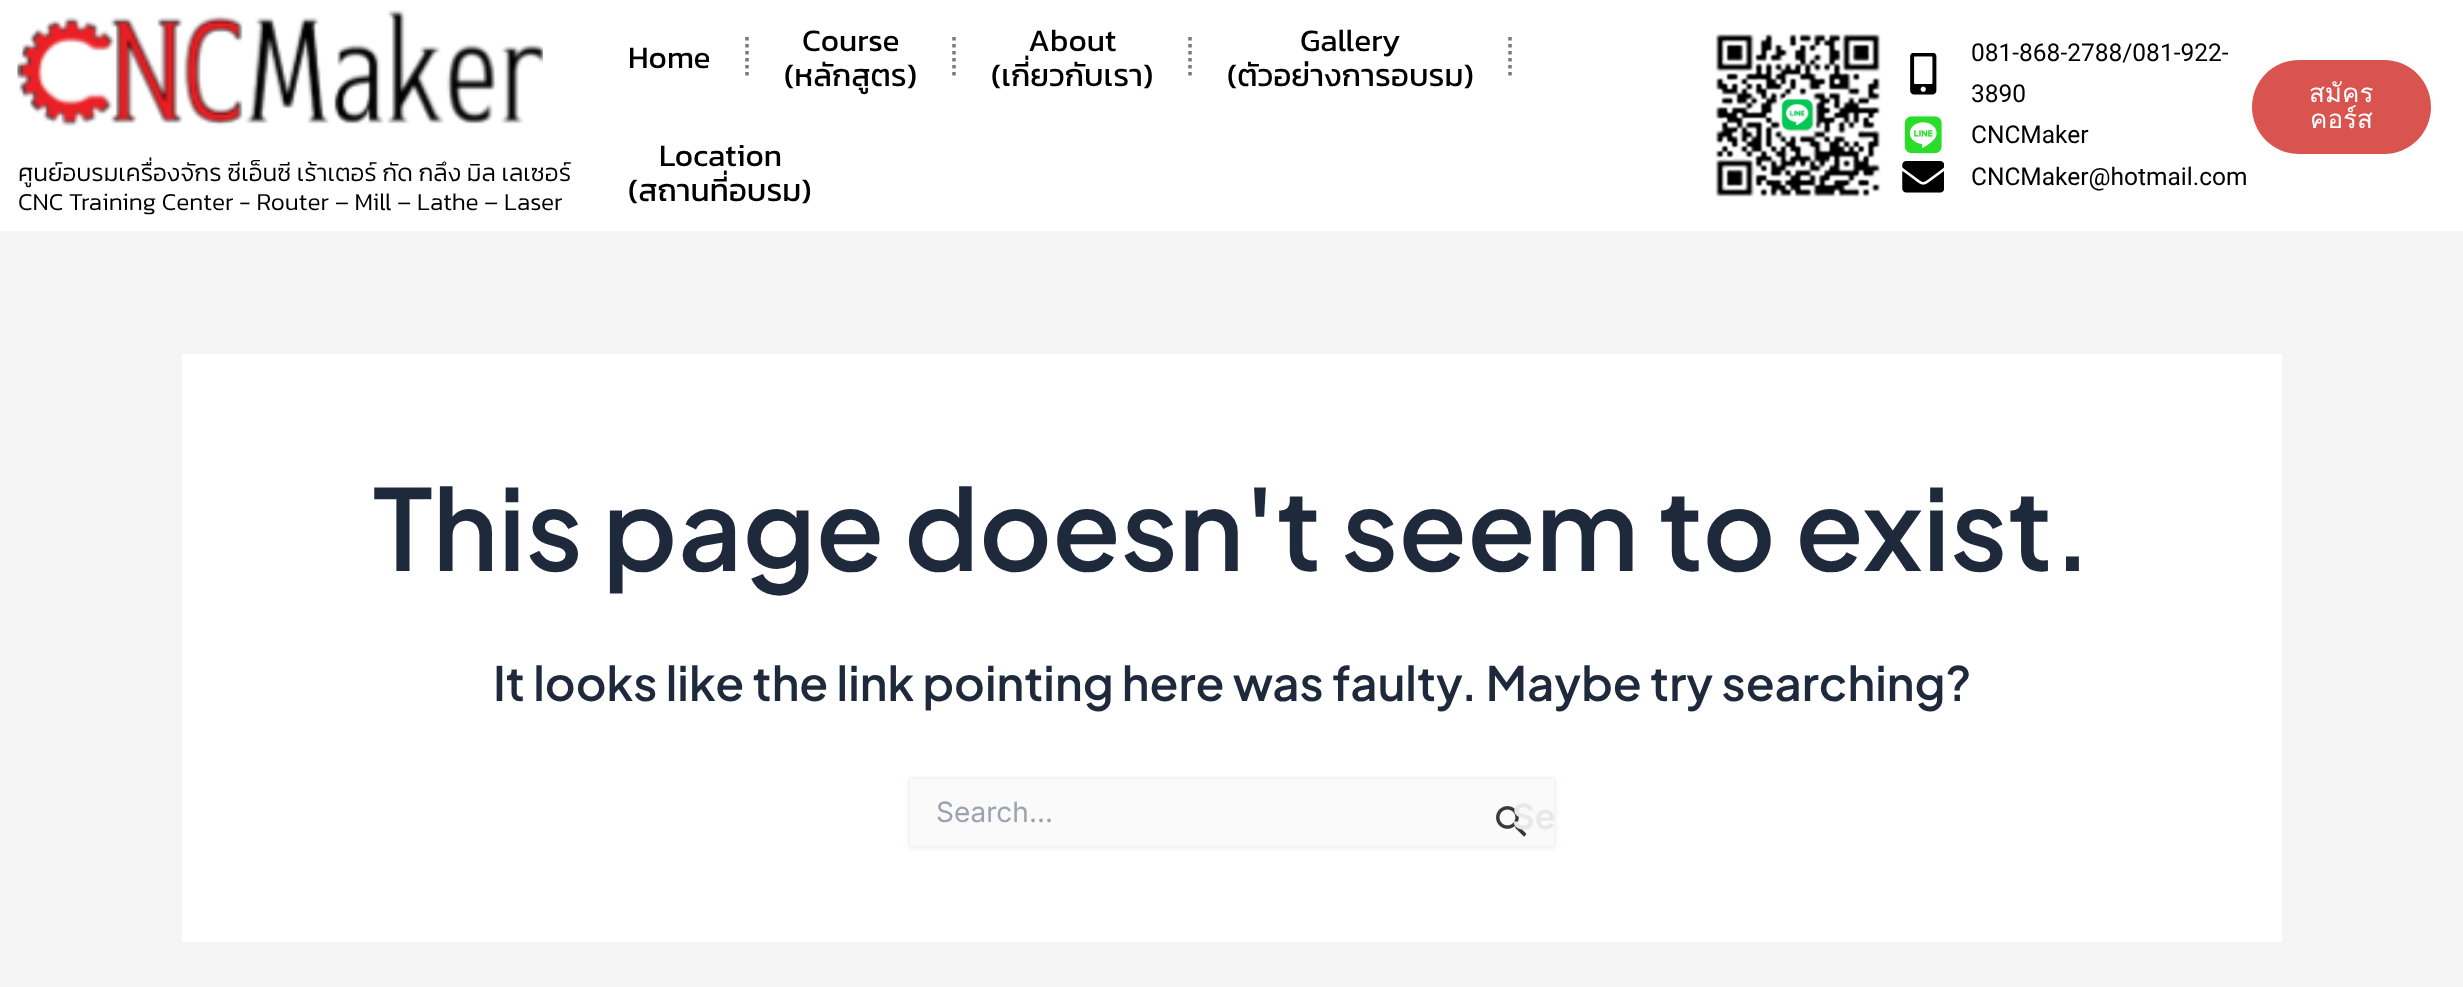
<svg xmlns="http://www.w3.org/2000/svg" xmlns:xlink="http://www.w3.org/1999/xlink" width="2463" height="987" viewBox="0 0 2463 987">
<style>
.cls-1{font:31.5px Kanit;fill:#000000}
.cls-2{font:24.5px Roboto;fill:#000000}
.cls-3{font:26px Loma;fill:#ffffff}
.cls-4{font:300 24.5px Kanit;fill:#000000}
.cls-5{font:600 112px Plus Jakarta Sans;fill:#1e293b}
.cls-6{font:600 47.25px Plus Jakarta Sans;fill:#1e293b}
.cls-7{font:28px Inter;fill:#9ca3af}
.cls-8{font:600 35px Inter;fill:#e8e8e8}
</style>
<rect width="100%" height="100%" fill="#f5f5f5"/>
<rect fill="#ffffff" x="0" y="0" width="2463" height="231"/>
<path fill="none" stroke="#7a7a7a" stroke-width="3.5" stroke-dasharray="3.5 3.5" d="M747 37V79"/>
<path fill="none" stroke="#7a7a7a" stroke-width="3.5" stroke-dasharray="3.5 3.5" d="M954 37V79"/>
<path fill="none" stroke="#7a7a7a" stroke-width="3.5" stroke-dasharray="3.5 3.5" d="M1190 37V79"/>
<path fill="none" stroke="#7a7a7a" stroke-width="3.5" stroke-dasharray="3.5 3.5" d="M1510 37V79"/>
<image xlink:href="image0.png" x="1715" y="33" width="166" height="164"/>
<image xlink:href="image1.png" x="1910" y="53" width="27" height="42"/>
<image xlink:href="image2.png" x="1904" y="116" width="38" height="38"/>
<image xlink:href="image3.png" x="1902" y="161" width="42" height="32"/>
<rect fill="#d9534f" x="2252" y="60" width="179" height="94" rx="47"/>
<image xlink:href="image4.png" x="17" y="10" width="526" height="116"/>
<rect fill="#ffffff" x="182" y="354" width="2100" height="588"/>
<rect fill="#000000" fill-opacity="0.05" filter="blur(2px)" x="908" y="779" width="648" height="70" rx="4"/>
<rect fill="#fafafa" stroke="#f2f5f7" stroke-width="2" x="909" y="778" width="646" height="68" rx="3"/>
<image xlink:href="image5.png" x="1496" y="806" width="30" height="31"/>
<text class="cls-1" x="628" y="68">Home</text>
<text class="cls-1" x="802" y="51">Course</text>
<text class="cls-1" x="784" y="86">(หลักสูตร)</text>
<text class="cls-1" x="1028" y="51">About</text>
<text class="cls-1" x="991" y="86">(เกี่ยวกับเรา)</text>
<text class="cls-1" x="1300" y="51">Gallery</text>
<text class="cls-1" x="1227" y="86">(ตัวอย่างการอบรม)</text>
<text class="cls-1" x="659" y="166">Location</text>
<text class="cls-1" x="628" y="201">(สถานที่อบรม)</text>
<text class="cls-2"><tspan x="1971" y="61">081-868-2788/081-922-</tspan><tspan x="1971" y="102">3890</tspan><tspan x="1971" y="143">CNCMaker</tspan><tspan x="1971" y="185">CNCMaker@hotmail.com</tspan></text>
<text class="cls-3" x="2309" y="102">สมัคร</text>
<text class="cls-3" x="2310" y="128">คอร์ส</text>
<text class="cls-4"><tspan x="18" y="181">ศูนย์อบรมเครื่องจักร ซีเอ็นซี เร้าเตอร์ กัด กลึง มิล เลเซอร์</tspan><tspan x="18" y="210">CNC Training Center - Router – Mill – Lathe – Laser</tspan></text>
<text class="cls-5" x="373" y="571">This page doesn't seem to exist.</text>
<text class="cls-6" x="493" y="701">It looks like the link pointing here was faulty. Maybe try searching?</text>
<text class="cls-7" x="936" y="822">Search...</text>
<text class="cls-8" x="1512" y="829">Se</text>
</svg>
